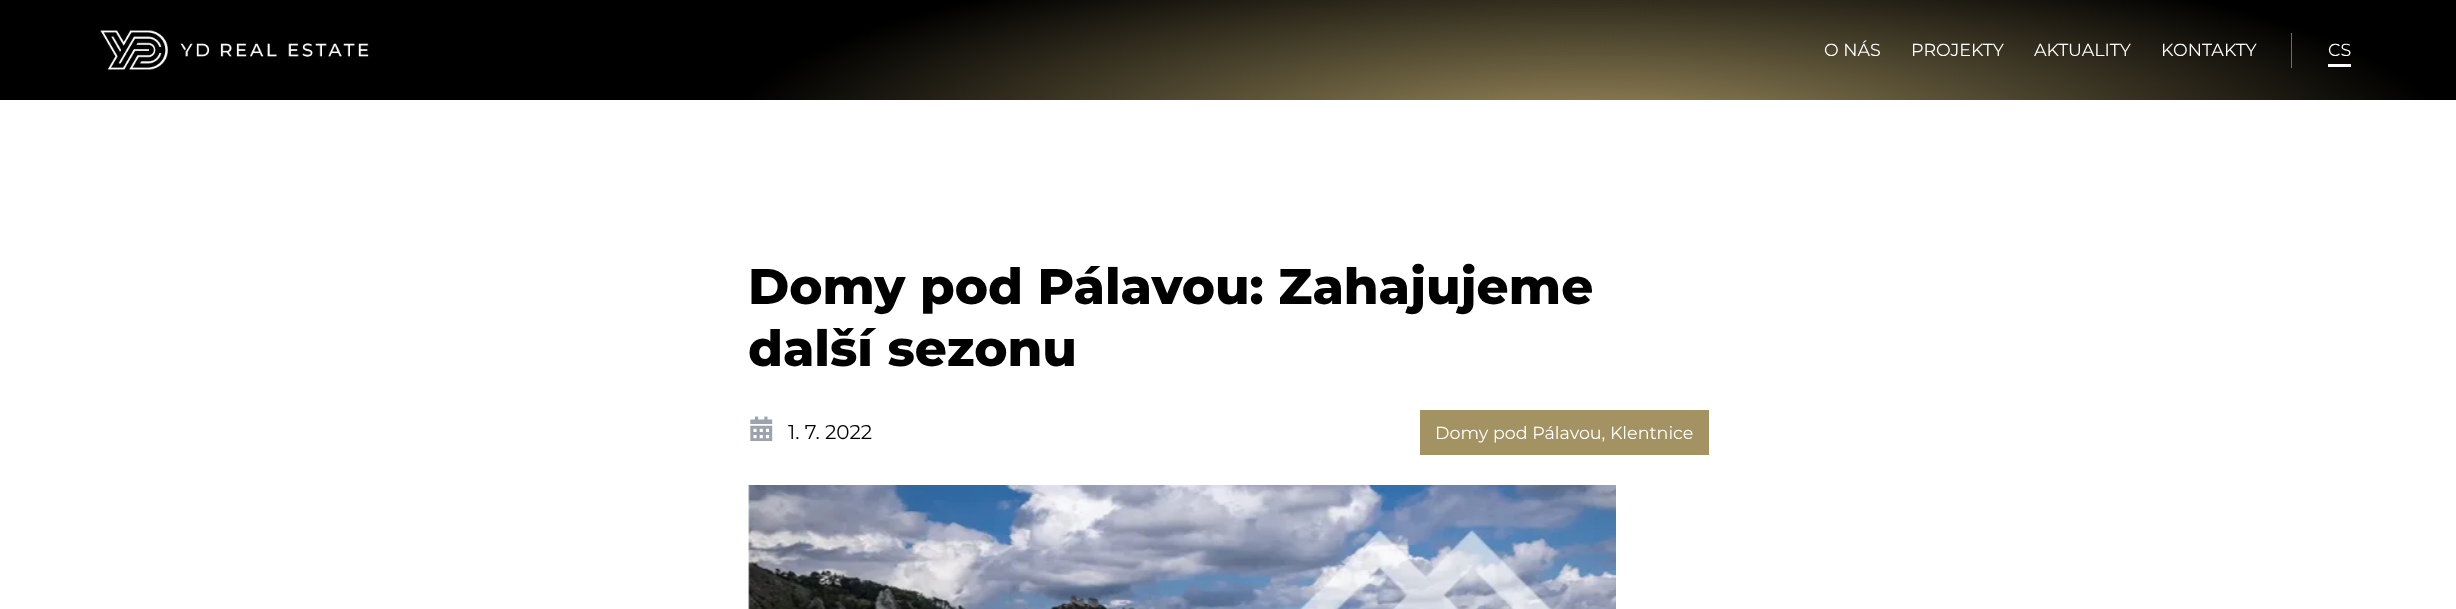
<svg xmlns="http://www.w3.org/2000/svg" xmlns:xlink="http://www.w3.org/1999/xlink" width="2456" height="609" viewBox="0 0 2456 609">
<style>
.cls-1{font:17.5px Montserrat;fill:#ffffff}
.cls-2{font:800 50px Montserrat;fill:#000000}
.cls-3{font:20px Montserrat;fill:#000000}
</style>
<defs>
<radialGradient id="g1" gradientUnits="userSpaceOnUse" cx="0" cy="0" r="1" gradientTransform="matrix(863 0 0 200 1586 140)"><stop offset="0" stop-color="#a49362"/><stop offset="1" stop-color="#000000"/></radialGradient>
<radialGradient id="g2" gradientUnits="userSpaceOnUse" cx="0" cy="0" r="1" gradientTransform="matrix(863 0 0 200 1586 140)"><stop offset="0" stop-color="#c8bea1"/><stop offset="1" stop-color="#666666"/></radialGradient>
</defs>
<rect width="100%" height="100%" fill="#ffffff"/>
<rect fill="url(#g1)" x="0" y="0" width="2456" height="100"/>
<rect fill="url(#g2)" x="2291" y="33" width="1" height="35"/>
<image xlink:href="image0.png" x="100" y="30" width="269" height="40"/>
<rect fill="#ffffff" x="2328" y="64" width="23" height="3"/>
<image xlink:href="image1.png" x="750" y="416" width="23" height="25"/>
<rect fill="#a49362" x="1420" y="410" width="289" height="45"/>
<image xlink:href="image2.png" x="748" y="485" width="868" height="124"/>
<text class="cls-1" x="1824" y="56">O NÁS</text>
<text class="cls-1" x="1911" y="56">PROJEKTY</text>
<text class="cls-1" x="2034" y="56">AKTUALITY</text>
<text class="cls-1" x="2161" y="56">KONTAKTY</text>
<text class="cls-1" x="2328" y="56">CS</text>
<text class="cls-2"><tspan x="748" y="304">Domy pod Pálavou: Zahajujeme</tspan><tspan x="748" y="366">další sezonu</tspan></text>
<text class="cls-3" x="788" y="439">1. 7. 2022</text>
<text class="cls-1" x="1435" y="439">Domy pod Pálavou, Klentnice</text>
</svg>
